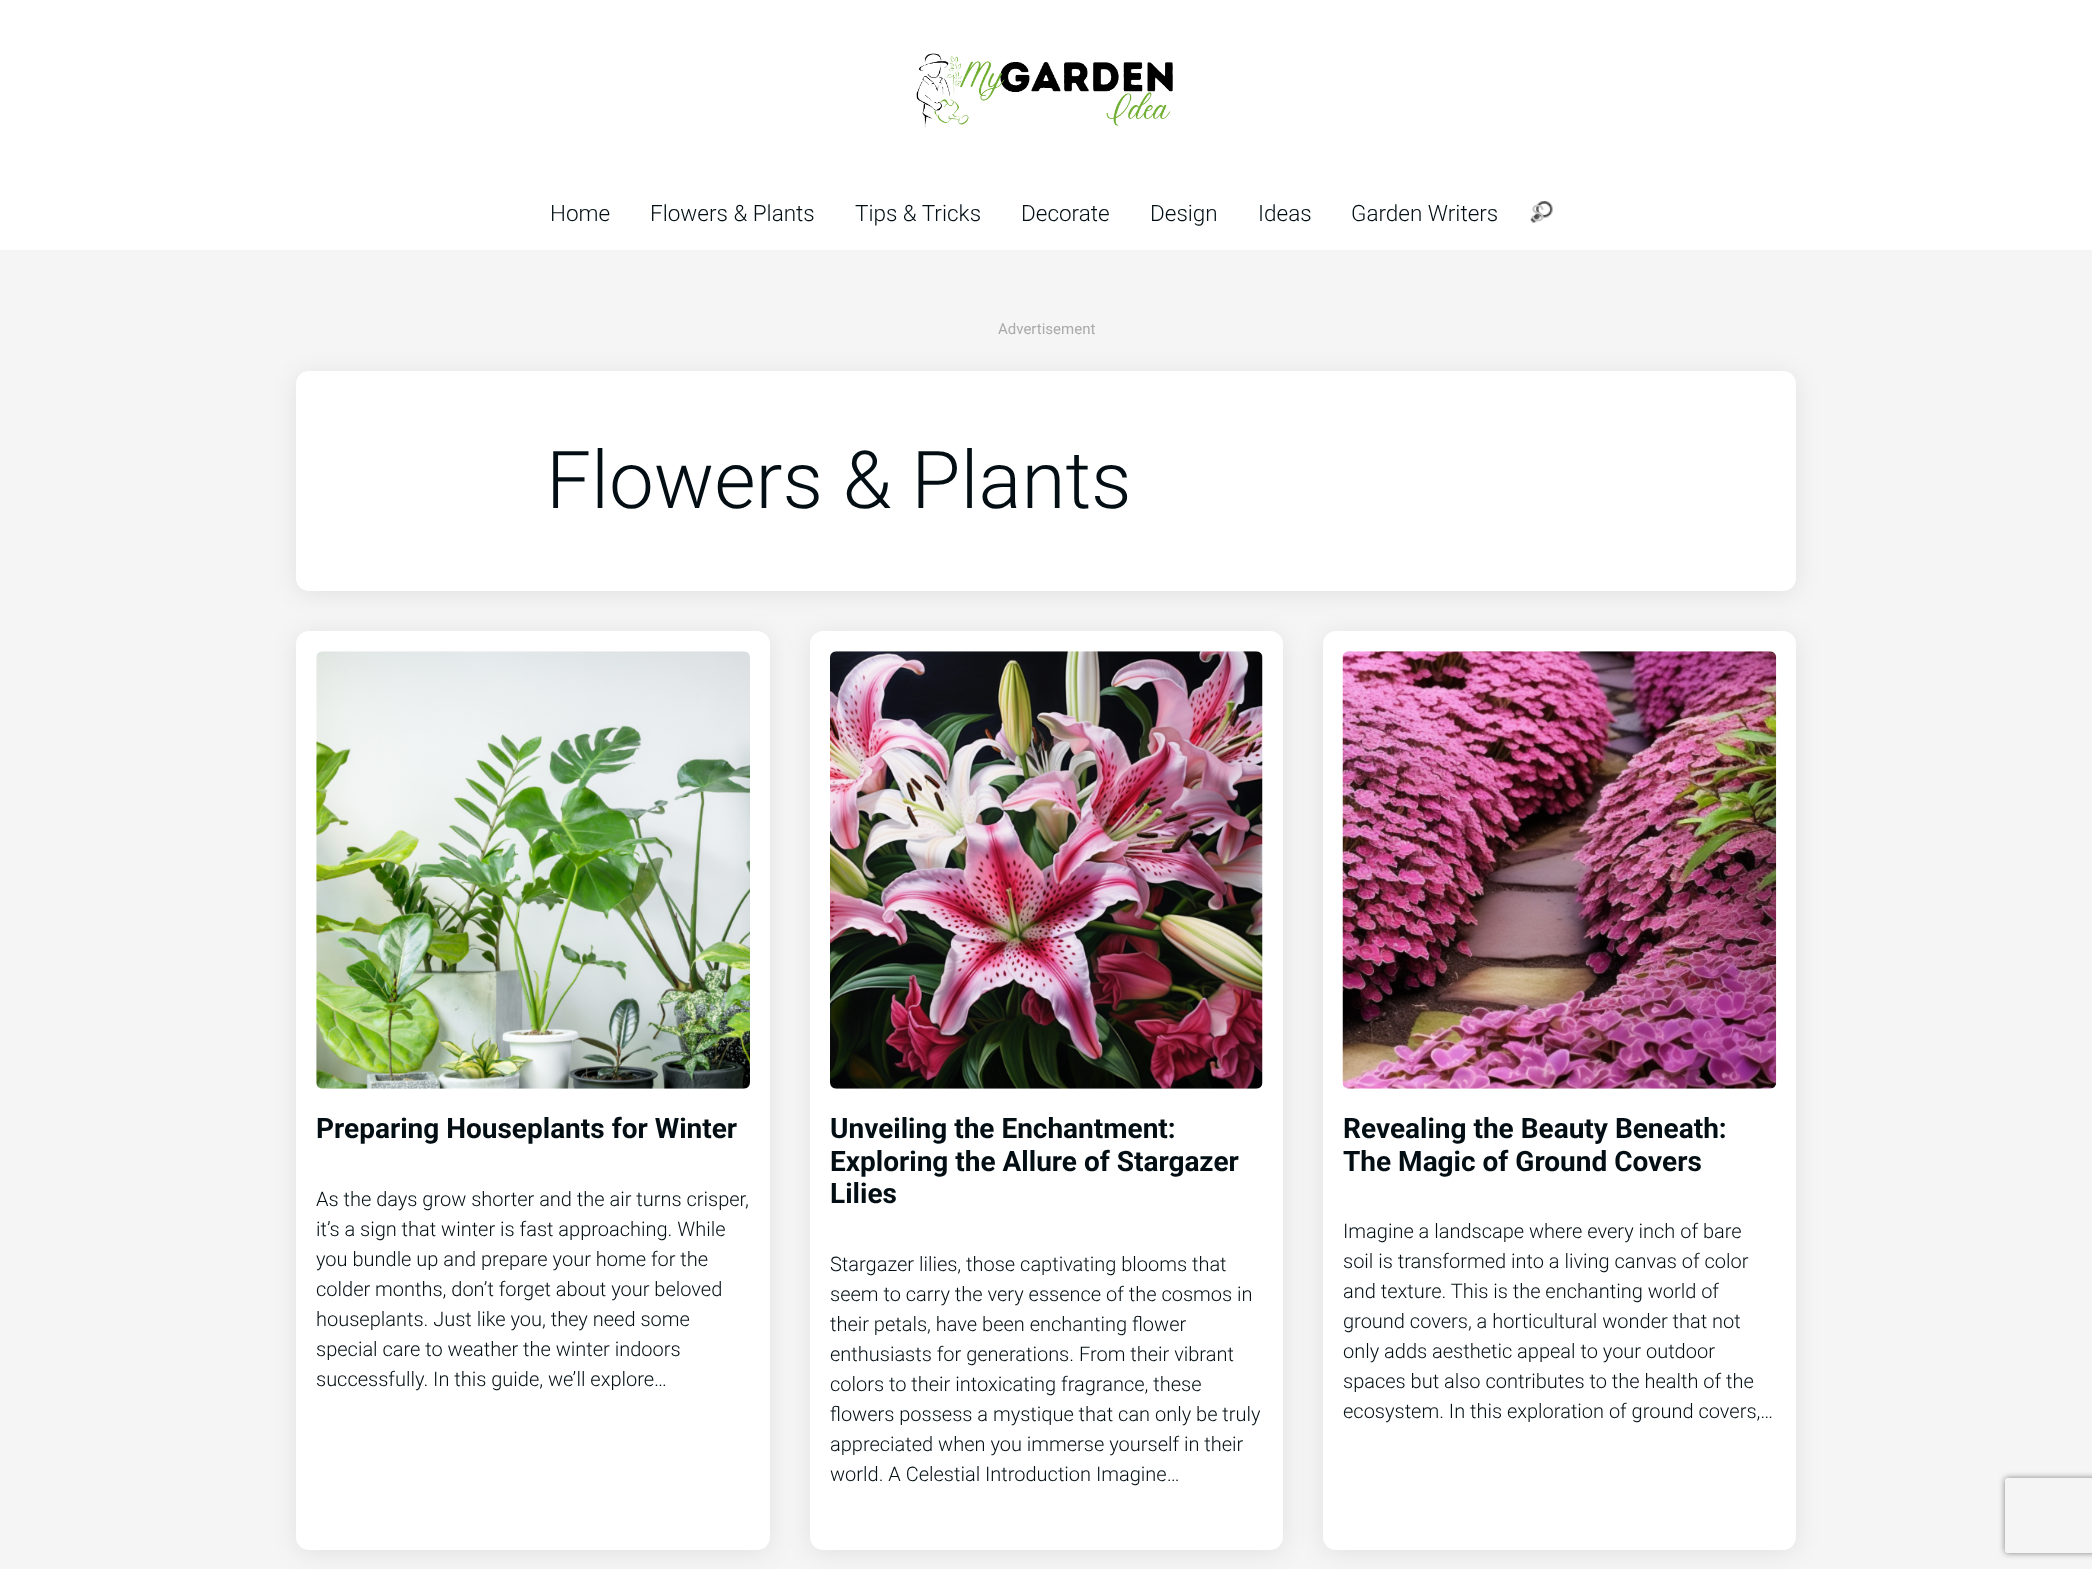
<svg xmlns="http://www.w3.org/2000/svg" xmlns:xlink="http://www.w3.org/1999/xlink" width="2092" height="1569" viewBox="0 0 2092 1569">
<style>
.cls-1{font:300 22.5px Roboto;fill:#020e13}
.cls-2{font:22.5px Roboto;fill:#c5c5c5}
.cls-3{font:15px Roboto;fill:#aaaaaa}
.cls-4{font:300 80px Roboto;fill:#020e13}
.cls-5{font:bold 28px Roboto;fill:#020e13}
.cls-6{font:300 20px Roboto;fill:#020e13}
</style>
<defs>
<clipPath id="clip1"><path d="M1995 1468H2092V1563H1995ZM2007.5 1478H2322.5C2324 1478 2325 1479 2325 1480.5V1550.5C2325 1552 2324 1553 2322.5 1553H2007.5C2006 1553 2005 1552 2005 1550.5V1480.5C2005 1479 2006 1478 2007.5 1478Z" clip-rule="evenodd"/></clipPath>
</defs>
<rect width="100%" height="100%" fill="#f5f5f5"/>
<rect fill="#ffffff" x="0" y="0" width="2092" height="250"/>
<image xlink:href="image0.png" x="916" y="53" width="257" height="75"/>
<image xlink:href="image1.png" x="1530" y="201" width="23" height="23"/>
<rect fill="#000000" fill-opacity="0.08" filter="blur(12.5px)" x="296" y="374" width="1500" height="220" rx="13"/>
<rect fill="#ffffff" x="296" y="371" width="1500" height="220" rx="13"/>
<rect fill="#000000" fill-opacity="0.08" filter="blur(12.5px)" x="296" y="634" width="474" height="919" rx="13"/>
<rect fill="#ffffff" x="296" y="631" width="474" height="919" rx="13"/>
<image xlink:href="image2.png" x="316" y="651" width="434" height="438"/>
<rect fill="#000000" fill-opacity="0.08" filter="blur(12.5px)" x="810" y="634" width="473" height="919" rx="13"/>
<rect fill="#ffffff" x="810" y="631" width="473" height="919" rx="13"/>
<image xlink:href="image3.png" x="830" y="651" width="433" height="438"/>
<rect fill="#000000" fill-opacity="0.08" filter="blur(12.5px)" x="1323" y="634" width="473" height="919" rx="13"/>
<rect fill="#ffffff" x="1323" y="631" width="473" height="919" rx="13"/>
<image xlink:href="image4.png" x="1342" y="651" width="435" height="438"/>
<g clip-path="url(#clip1)">
<rect fill="#808080" filter="blur(3px)" x="2005" y="1478" width="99" height="75" rx="2.5"/>
</g>
<text class="cls-1" x="550" y="221">Home</text>
<text class="cls-1" x="650" y="221">Flowers &amp; Plants</text>
<text class="cls-1" x="855" y="221">Tips &amp; Tricks</text>
<text class="cls-1" x="1021" y="221">Decorate</text>
<text class="cls-1" x="1150" y="221">Design</text>
<text class="cls-1" x="1258" y="221">Ideas</text>
<text class="cls-1" x="1351" y="221">Garden Writers</text>
<text class="cls-2" x="1531" y="221">S</text>
<text class="cls-3" x="998" y="334">Advertisement</text>
<text class="cls-4" x="546" y="508">Flowers &amp; Plants</text>
<text class="cls-5" x="316" y="1138">Preparing Houseplants for Winter</text>
<text class="cls-6"><tspan x="316" y="1206">As the days grow shorter and the air turns crisper,</tspan><tspan x="316" y="1236">it’s a sign that winter is fast approaching. While</tspan><tspan x="316" y="1266">you bundle up and prepare your home for the</tspan><tspan x="316" y="1296">colder months, don’t forget about your beloved</tspan><tspan x="316" y="1326">houseplants. Just like you, they need some</tspan><tspan x="316" y="1356">special care to weather the winter indoors</tspan><tspan x="316" y="1386">successfully. In this guide, we’ll explore…</tspan></text>
<text class="cls-5"><tspan x="830" y="1138">Unveiling the Enchantment:</tspan><tspan x="830" y="1171">Exploring the Allure of Stargazer</tspan><tspan x="830" y="1203">Lilies</tspan></text>
<text class="cls-6"><tspan x="830" y="1271">Stargazer lilies, those captivating blooms that</tspan><tspan x="830" y="1301">seem to carry the very essence of the cosmos in</tspan><tspan x="830" y="1331">their petals, have been enchanting flower</tspan><tspan x="830" y="1361">enthusiasts for generations. From their vibrant</tspan><tspan x="830" y="1391">colors to their intoxicating fragrance, these</tspan><tspan x="830" y="1421">flowers possess a mystique that can only be truly</tspan><tspan x="830" y="1451">appreciated when you immerse yourself in their</tspan><tspan x="830" y="1481">world. A Celestial Introduction Imagine…</tspan></text>
<text class="cls-5"><tspan x="1343" y="1138">Revealing the Beauty Beneath:</tspan><tspan x="1343" y="1171">The Magic of Ground Covers</tspan></text>
<text class="cls-6"><tspan x="1343" y="1238">Imagine a landscape where every inch of bare</tspan><tspan x="1343" y="1268">soil is transformed into a living canvas of color</tspan><tspan x="1343" y="1298">and texture. This is the enchanting world of</tspan><tspan x="1343" y="1328">ground covers, a horticultural wonder that not</tspan><tspan x="1343" y="1358">only adds aesthetic appeal to your outdoor</tspan><tspan x="1343" y="1388">spaces but also contributes to the health of the</tspan><tspan x="1343" y="1418">ecosystem. In this exploration of ground covers,…</tspan></text>
</svg>
